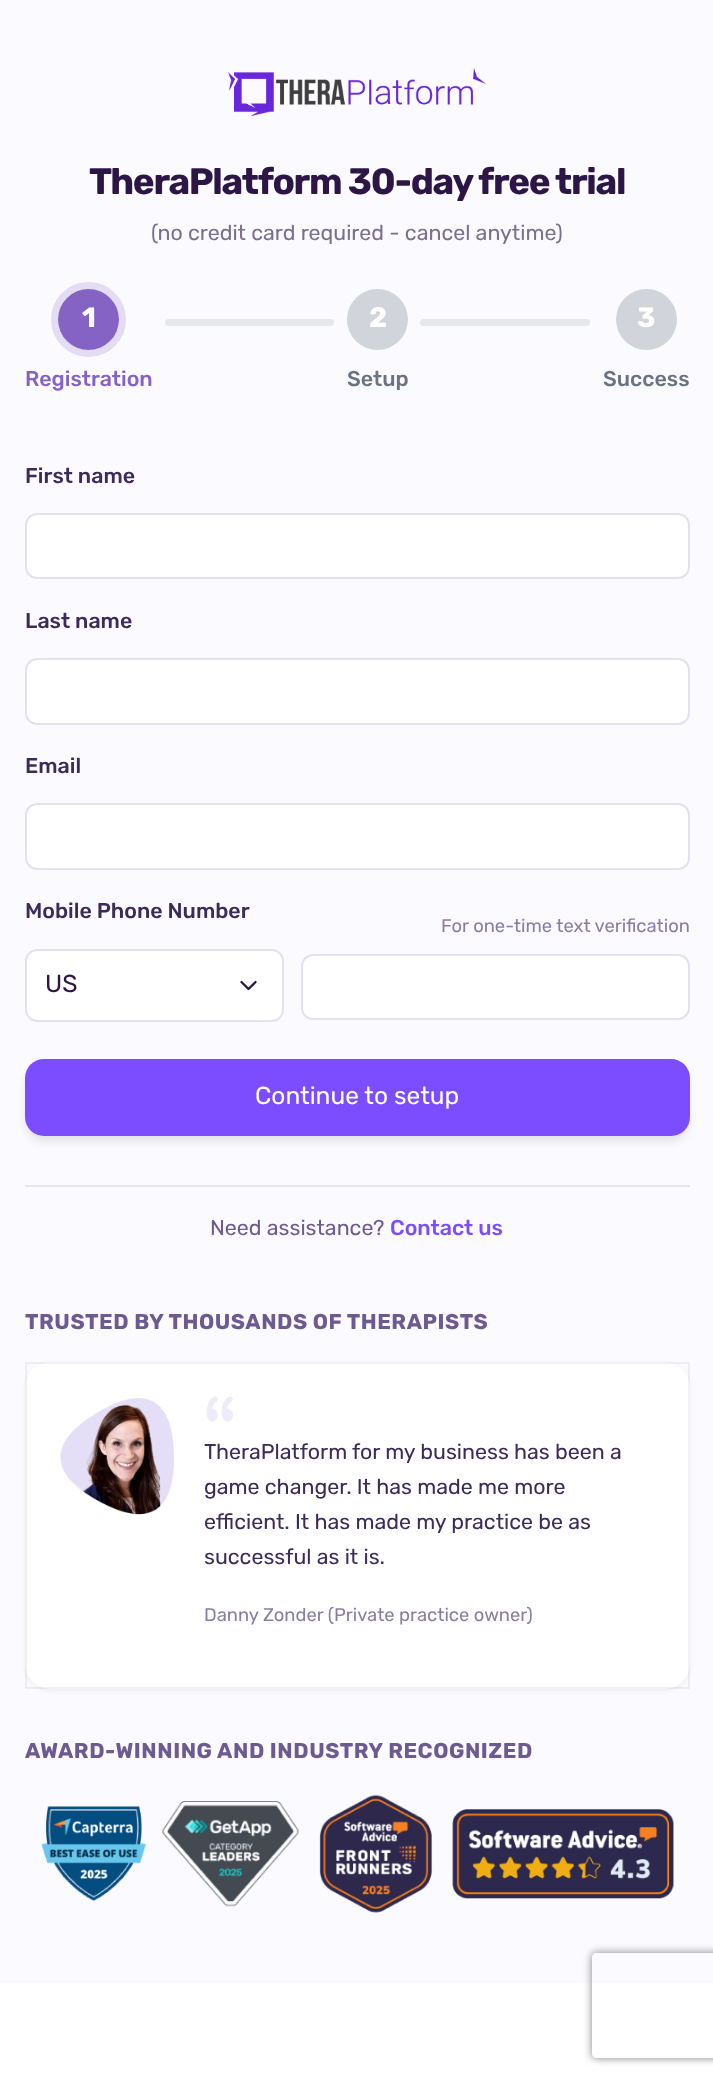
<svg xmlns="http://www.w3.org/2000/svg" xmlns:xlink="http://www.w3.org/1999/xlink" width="713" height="2081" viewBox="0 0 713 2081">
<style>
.cls-1{font:bold 36.75px Rubik;letter-spacing:-1.3px;fill:#2b1645}
.cls-2{font:21.4px Rubik;fill:#7a6f8e}
.cls-3{font:bold 28px Rubik;fill:#ffffff}
.cls-4{font:500 21.4px Rubik;fill:#8463c5}
.cls-5{font:500 21.4px Rubik;fill:#6b7280}
.cls-6{font:500 21.4px Rubik;fill:#3b2a5a}
.cls-7{font:18.4px Rubik;fill:#8a7da5}
.cls-8{font:24.5px Rubik;fill:#2b1645}
.cls-9{font:24.5px Rubik;fill:#ffffff}
.cls-10{font:21.4px Rubik;fill:#6d5a90}
.cls-11{font:500 21.4px Rubik;fill:#7c4dff}
.cls-12{font:bold 21.4px Rubik;letter-spacing:0.55px;fill:#6d5a90}
.cls-13{font:21.4px Rubik;fill:#3b2a5a}
</style>
<defs>
<clipPath id="clip1"><path d="M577 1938H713V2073H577ZM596 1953H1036C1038 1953 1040 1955 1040 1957V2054C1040 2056 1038 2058 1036 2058H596C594 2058 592 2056 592 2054V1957C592 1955 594 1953 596 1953Z" clip-rule="evenodd"/></clipPath>
</defs>
<rect width="100%" height="100%" fill="#ffffff"/>
<rect fill="#fbfafe" x="0" y="0" width="713" height="1983"/>
<image xlink:href="image0.png" x="228" y="68" width="258" height="49"/>
<circle fill="none" stroke="#e3dcf3" stroke-width="7" cx="88.5" cy="319.5" r="34"/>
<circle fill="#8463c5" cx="88.5" cy="319.5" r="30.5"/>
<rect fill="#e5e7eb" x="165" y="319" width="169" height="7" rx="3.5"/>
<circle fill="#d1d5db" cx="377.5" cy="319.5" r="30.5"/>
<rect fill="#e5e7eb" x="420" y="319" width="170" height="7" rx="3.5"/>
<circle fill="#d1d5db" cx="646.5" cy="319.5" r="30.5"/>
<rect fill="#ffffff" stroke="#e5e0ef" stroke-width="2" x="26" y="514" width="663" height="64" rx="11"/>
<rect fill="#ffffff" stroke="#e5e0ef" stroke-width="2" x="26" y="659" width="663" height="65" rx="11"/>
<rect fill="#ffffff" stroke="#e5e0ef" stroke-width="2" x="26" y="804" width="663" height="65" rx="11"/>
<rect fill="#ffffff" x="25" y="949" width="259" height="73" rx="12"/>
<path fill="none" stroke="#2b1645" stroke-width="2.3" stroke-linecap="round" stroke-linejoin="round" d="M241.5 982L248.5 989L255.5 982"/>
<rect fill="none" stroke="#e5e0ef" stroke-width="2" x="26" y="950" width="257" height="71" rx="11"/>
<rect fill="#ffffff" stroke="#e5e0ef" stroke-width="2" x="302" y="955" width="387" height="64" rx="11"/>
<rect fill="#000000" fill-opacity="0.1" filter="blur(5px)" x="26" y="1068" width="662" height="73" rx="18"/>
<rect fill="#7c4dff" x="25" y="1059" width="665" height="77" rx="19"/>
<rect fill="#e9e4f3" x="25" y="1185" width="665" height="2"/>
<rect fill="#000000" fill-opacity="0.05" filter="blur(2px)" x="25" y="1363" width="665" height="328" rx="25"/>
<rect fill="#ffffff" x="25" y="1362" width="665" height="327" rx="25"/>
<rect fill="none" stroke="#000000" stroke-opacity="0.05" stroke-width="2" x="26" y="1363" width="663" height="325"/>
<image xlink:href="image1.png" x="60" y="1398" width="115" height="117"/>
<image xlink:href="image2.png" x="206" y="1396" width="27" height="26"/>
<image xlink:href="image3.png" x="41" y="1794" width="633" height="119"/>
<g clip-path="url(#clip1)">
<rect fill="#808080" filter="blur(4.5px)" x="592" y="1953" width="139" height="105" rx="4"/>
</g>
<text class="cls-1" x="89" y="194">TheraPlatform 30-day free trial</text>
<text class="cls-2" x="151" y="240">(no credit card required - cancel anytime)</text>
<text class="cls-3" x="82" y="327">1</text>
<text class="cls-4" x="25" y="386">Registration</text>
<text class="cls-3" x="369" y="327">2</text>
<text class="cls-5" x="347" y="386">Setup</text>
<text class="cls-3" x="637" y="327">3</text>
<text class="cls-5" x="603" y="386">Success</text>
<text class="cls-6" x="25" y="483">First name</text>
<text class="cls-6" x="25" y="628">Last name</text>
<text class="cls-6" x="25" y="773">Email</text>
<text class="cls-6" x="25" y="918">Mobile Phone Number</text>
<text class="cls-7" x="441" y="932">For one-time text verification</text>
<text class="cls-8" x="45" y="992">US</text>
<text class="cls-9" x="255" y="1104">Continue to setup</text>
<text class="cls-10" x="210" y="1235">Need assistance?</text>
<text class="cls-11" x="390" y="1235">Contact us</text>
<text class="cls-12" x="25" y="1329">TRUSTED BY THOUSANDS OF THERAPISTS</text>
<text class="cls-13"><tspan x="204" y="1459">TheraPlatform for my business has been a</tspan><tspan x="204" y="1494">game changer. It has made me more</tspan><tspan x="204" y="1529">efficient. It has made my practice be as</tspan><tspan x="204" y="1564">successful as it is.</tspan></text>
<text class="cls-7" x="204" y="1621">Danny Zonder (Private practice owner)</text>
<text class="cls-12" x="25" y="1758">AWARD-WINNING AND INDUSTRY RECOGNIZED</text>
</svg>
